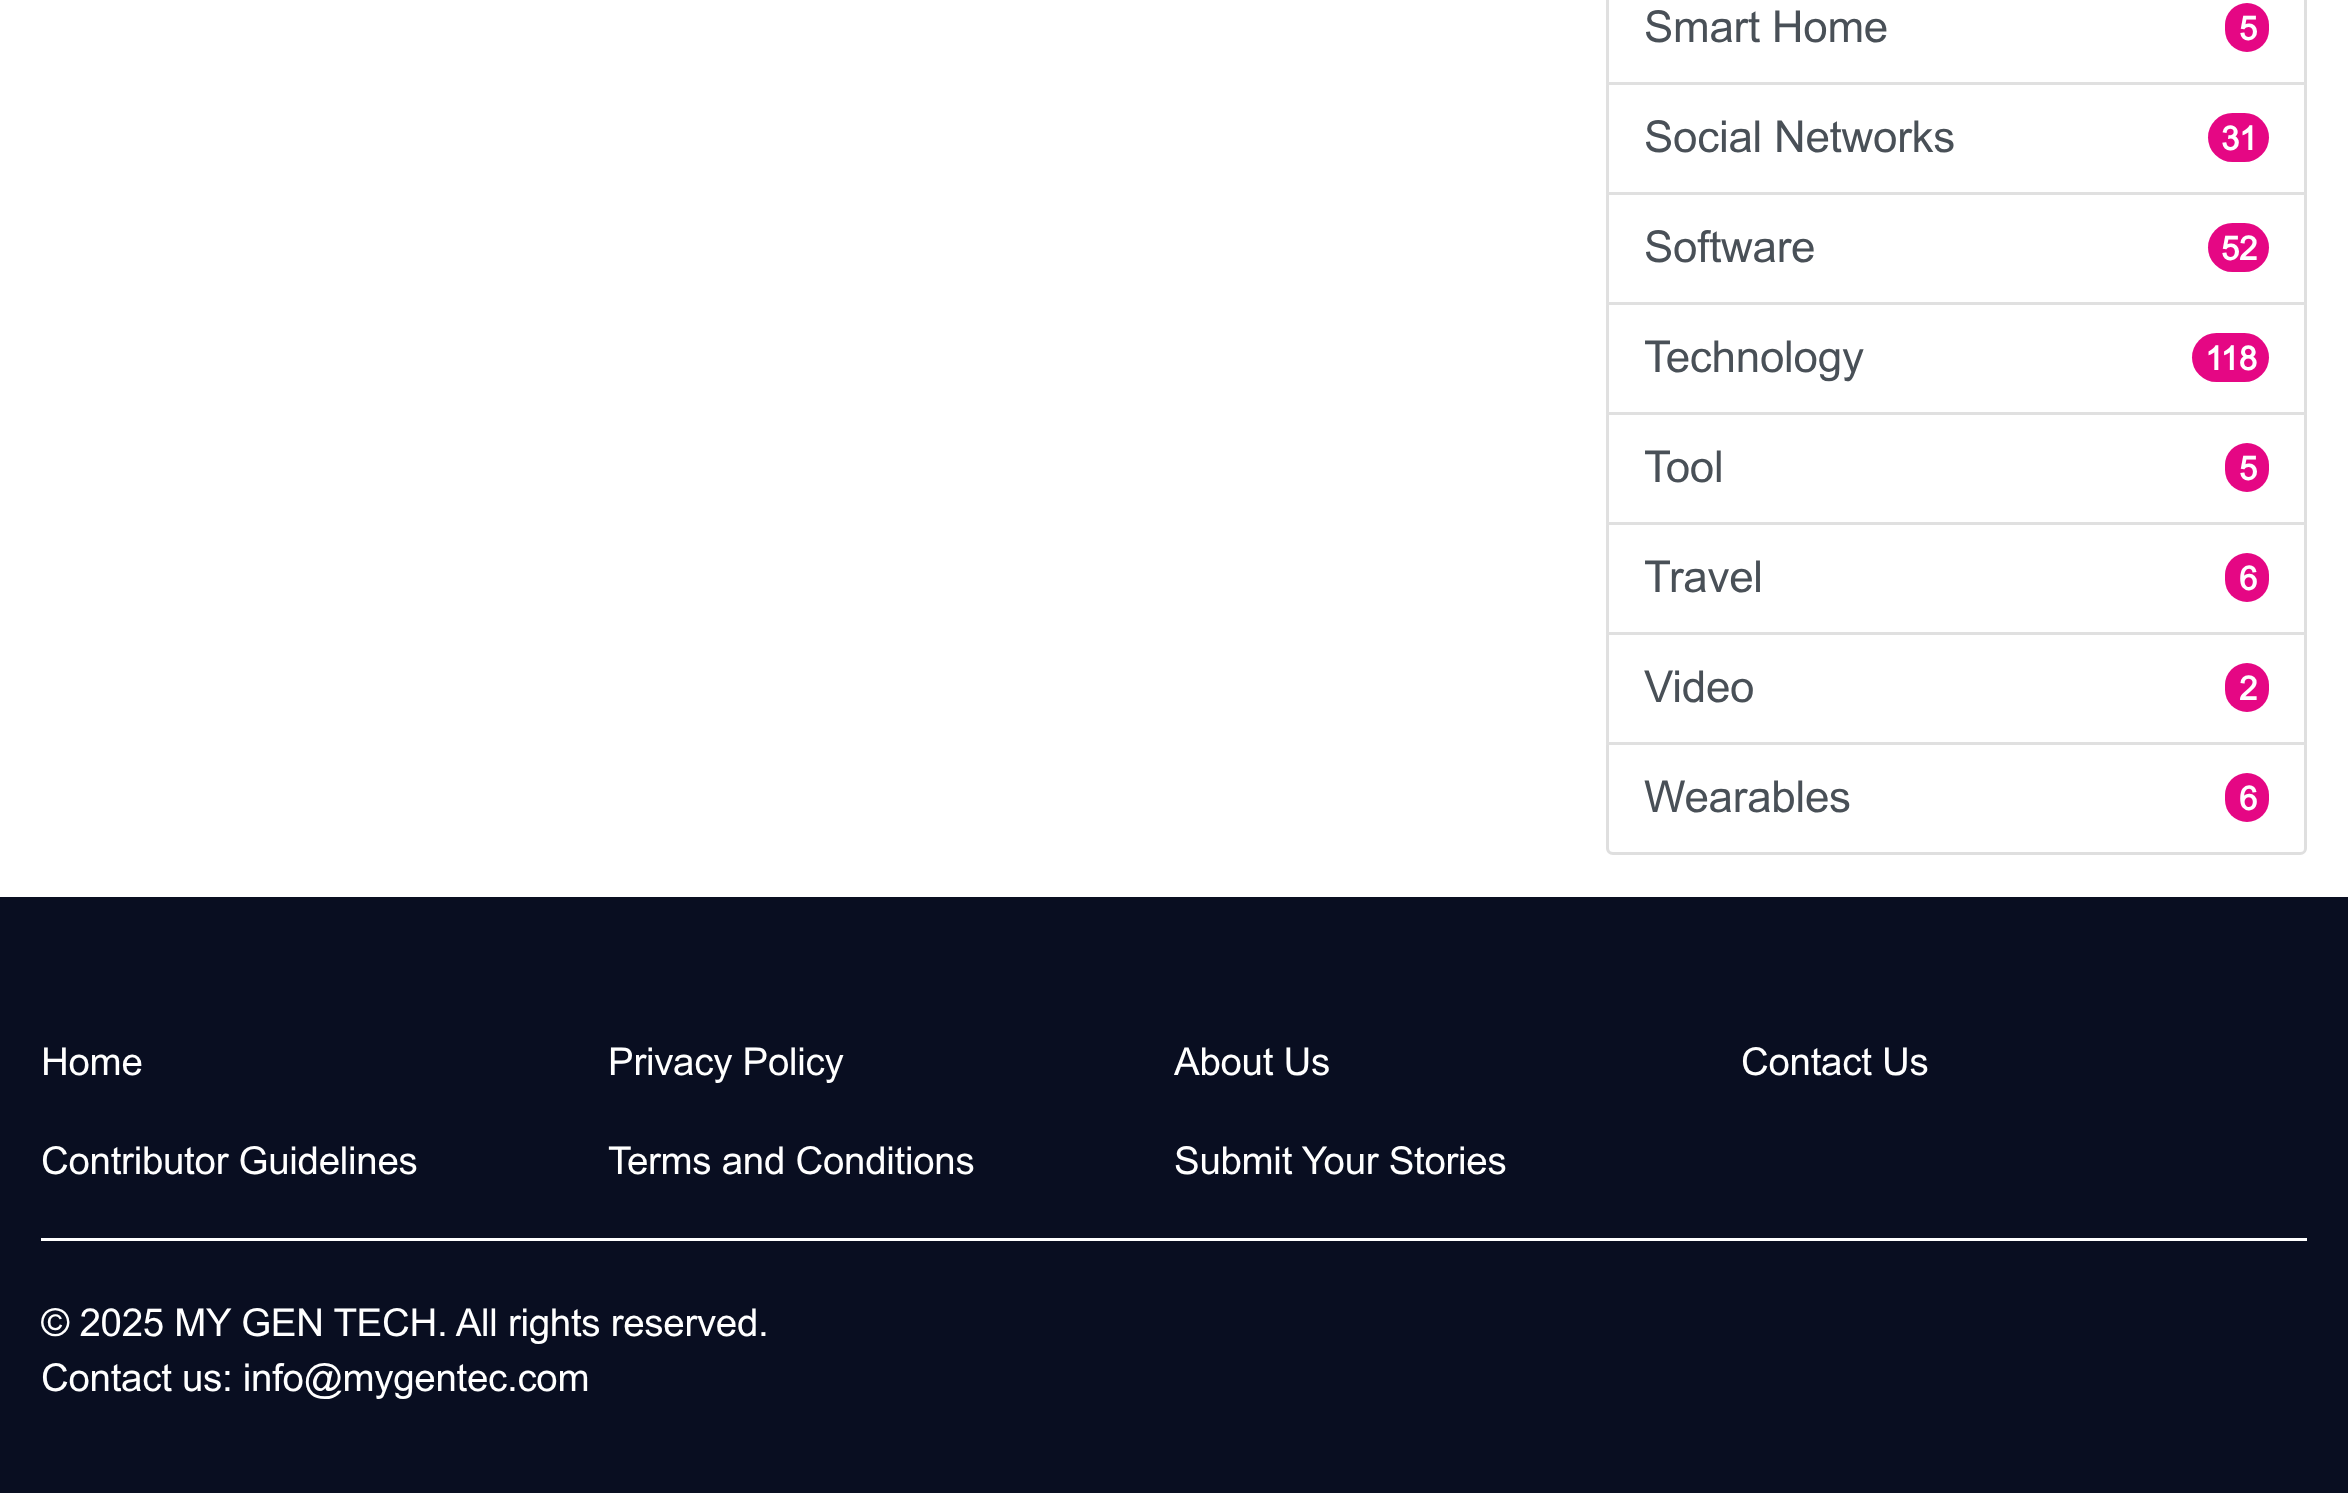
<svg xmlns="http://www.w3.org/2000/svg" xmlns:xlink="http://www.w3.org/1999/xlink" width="2348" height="1493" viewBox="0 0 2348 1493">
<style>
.cls-1{font:44px Arial;letter-spacing:-0.3px;fill:#495057}
.cls-2{font:bold 33px Arial;letter-spacing:-0.3px;fill:#ffffff}
.cls-3{font:38.5px Arial;letter-spacing:-0.3px;fill:#ffffff}
</style>
<rect width="100%" height="100%" fill="#ffffff"/>
<path fill="#dfdfdf" d="M2307-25V85L2304 82V-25Z"/>
<path fill="#000000" fill-opacity="0.12" d="M2307 85H1606L1609 82H2304Z"/>
<path fill="#000000" fill-opacity="0.12" d="M1606 85V-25H1609V82Z"/>
<rect fill="#e50784" x="2225" y="3" width="44" height="49" rx="22"/>
<path fill="#dfdfdf" d="M2307 85V195L2304 192V85Z"/>
<path fill="#000000" fill-opacity="0.12" d="M2307 195H1606L1609 192H2304Z"/>
<path fill="#000000" fill-opacity="0.12" d="M1606 195V85H1609V192Z"/>
<rect fill="#e50784" x="2208" y="113" width="61" height="49" rx="24.5"/>
<path fill="#dfdfdf" d="M2307 195V305L2304 302V195Z"/>
<path fill="#000000" fill-opacity="0.12" d="M2307 305H1606L1609 302H2304Z"/>
<path fill="#000000" fill-opacity="0.12" d="M1606 305V195H1609V302Z"/>
<rect fill="#e50784" x="2208" y="223" width="61" height="49" rx="24.5"/>
<path fill="#dfdfdf" d="M2307 305V415L2304 412V305Z"/>
<path fill="#000000" fill-opacity="0.12" d="M2307 415H1606L1609 412H2304Z"/>
<path fill="#000000" fill-opacity="0.12" d="M1606 415V305H1609V412Z"/>
<rect fill="#e50784" x="2192" y="333" width="77" height="49" rx="24.5"/>
<path fill="#dfdfdf" d="M2307 415V525L2304 522V415Z"/>
<path fill="#000000" fill-opacity="0.12" d="M2307 525H1606L1609 522H2304Z"/>
<path fill="#000000" fill-opacity="0.12" d="M1606 525V415H1609V522Z"/>
<rect fill="#e50784" x="2225" y="443" width="44" height="49" rx="22"/>
<path fill="#dfdfdf" d="M2307 525V635L2304 632V525Z"/>
<path fill="#000000" fill-opacity="0.12" d="M2307 635H1606L1609 632H2304Z"/>
<path fill="#000000" fill-opacity="0.12" d="M1606 635V525H1609V632Z"/>
<rect fill="#e50784" x="2225" y="553" width="44" height="49" rx="22"/>
<path fill="#dfdfdf" d="M2307 635V745L2304 742V635Z"/>
<path fill="#000000" fill-opacity="0.12" d="M2307 745H1606L1609 742H2304Z"/>
<path fill="#000000" fill-opacity="0.12" d="M1606 745V635H1609V742Z"/>
<rect fill="#e50784" x="2225" y="663" width="44" height="49" rx="22"/>
<path fill="#dfdfdf" fill-rule="evenodd" d="M1606 745H2307V848C2307 852 2304 855 2300 855H1613C1609 855 1606 852 1606 848ZM1609 745H2304V848C2304 851 2303 852 2300 852H1613C1611 852 1609 851 1609 848Z"/>
<rect fill="#e50784" x="2225" y="773" width="44" height="49" rx="22"/>
<rect fill="#090e21" x="0" y="897" width="2348" height="596"/>
<rect fill="#ffffff" x="41" y="1238" width="2266" height="3"/>
<text class="cls-1" x="1644" y="42">Smart Home</text>
<text class="cls-2" x="2239" y="40">5</text>
<text class="cls-1" x="1644" y="152">Social Networks</text>
<text class="cls-2" x="2221" y="150">31</text>
<text class="cls-1" x="1644" y="262">Software</text>
<text class="cls-2" x="2221" y="260">52</text>
<text class="cls-1" x="1644" y="372">Technology</text>
<text class="cls-2" x="2205" y="370">118</text>
<text class="cls-1" x="1644" y="482">Tool</text>
<text class="cls-2" x="2239" y="480">5</text>
<text class="cls-1" x="1644" y="592">Travel</text>
<text class="cls-2" x="2239" y="590">6</text>
<text class="cls-1" x="1644" y="702">Video</text>
<text class="cls-2" x="2239" y="700">2</text>
<text class="cls-1" x="1644" y="812">Wearables</text>
<text class="cls-2" x="2239" y="810">6</text>
<text class="cls-3" x="41" y="1075">Home</text>
<text class="cls-3" x="608" y="1075">Privacy Policy</text>
<text class="cls-3" x="1174" y="1075">About Us</text>
<text class="cls-3" x="1741" y="1075">Contact Us</text>
<text class="cls-3" x="41" y="1174">Contributor Guidelines</text>
<text class="cls-3" x="608" y="1174">Terms and Conditions</text>
<text class="cls-3" x="1174" y="1174">Submit Your Stories</text>
<text class="cls-3"><tspan x="41" y="1336">© 2025 MY GEN TECH. All rights reserved.</tspan><tspan x="41" y="1391">Contact us: info@mygentec.com</tspan></text>
</svg>
